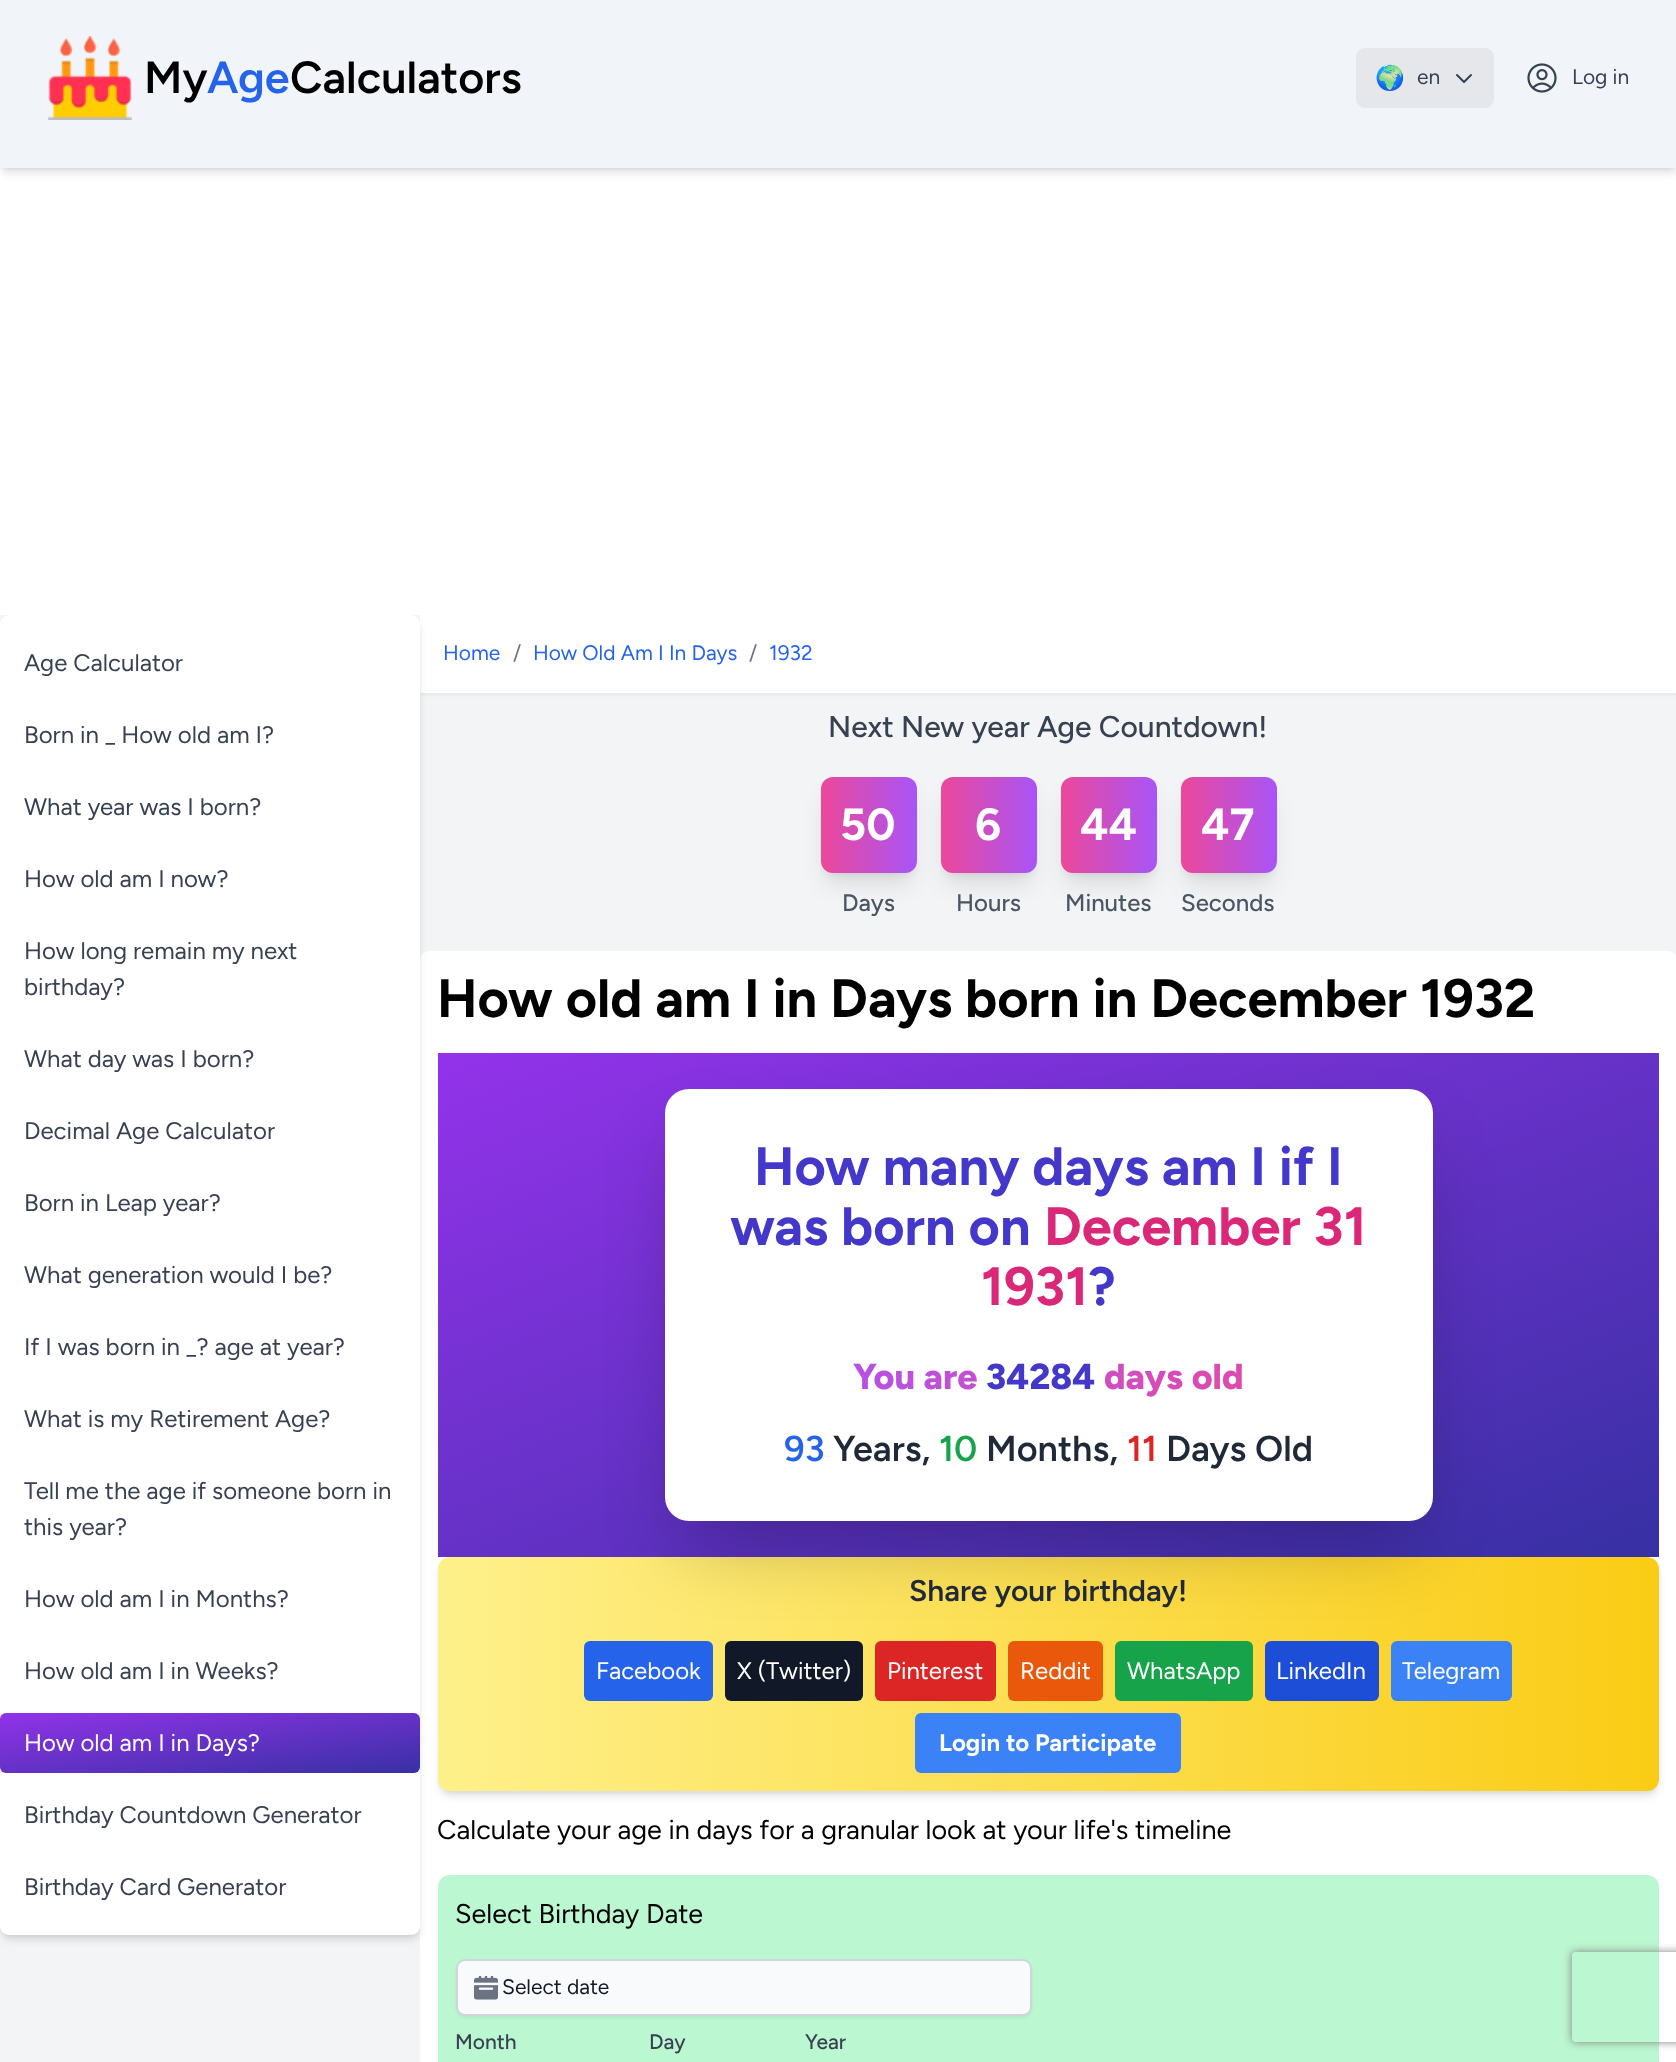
<svg xmlns="http://www.w3.org/2000/svg" xmlns:xlink="http://www.w3.org/1999/xlink" width="1676" height="2062" viewBox="0 0 1676 2062">
<style>
.cls-1{font:600 45px Figtree;fill:#000000}
.cls-2{font:600 45px Figtree;fill:#2563eb}
.cls-3{font:24px Noto Color Emoji;fill:#374151}
.cls-4{font:21px Figtree;fill:#374151}
.cls-5{font:24px Figtree;fill:#374151}
.cls-6{font:24px Figtree;fill:#ffffff}
.cls-7{font:21px Figtree;fill:#2563eb}
.cls-8{font:21px Figtree;fill:#6b7280}
.cls-9{font:500 30px Figtree;fill:#374151}
.cls-10{font:bold 45px Figtree;fill:#ffffff}
.cls-11{font:500 24px Figtree;fill:#4b5563}
.cls-12{font:bold 54px Figtree;fill:#000000}
.cls-13{font:bold 54px Figtree;fill:#4338ca}
.cls-14{font:bold 54px Figtree;fill:#db2777}
.cls-15{font:800 36px Figtree;fill:url(#g8)}
.cls-16{font:800 36px Figtree;fill:#4338ca}
.cls-17{font:600 36px Figtree;fill:#2563eb}
.cls-18{font:600 36px Figtree;fill:#1f2937}
.cls-19{font:600 36px Figtree;fill:#16a34a}
.cls-20{font:600 36px Figtree;fill:#dc2626}
.cls-21{font:600 30px Figtree;fill:#1f2937}
.cls-22{font:bold 24px Figtree;fill:#ffffff}
.cls-23{font:27px Figtree;fill:#000000}
.cls-24{font:21px Figtree;fill:#111827}
.cls-25{font:500 21px Figtree;fill:#374151}
</style>
<defs>
<linearGradient id="g1" gradientUnits="userSpaceOnUse" x1="202" y1="1684" x2="218" y2="1802"><stop offset="0" stop-color="#9333ea"/><stop offset="1" stop-color="#3730a3"/></linearGradient>
<linearGradient id="g2" gradientUnits="userSpaceOnUse" x1="821" y1="825" x2="917" y2="825"><stop offset="0" stop-color="#ec4899"/><stop offset="1" stop-color="#a855f7"/></linearGradient>
<linearGradient id="g3" gradientUnits="userSpaceOnUse" x1="941" y1="825" x2="1037" y2="825"><stop offset="0" stop-color="#ec4899"/><stop offset="1" stop-color="#a855f7"/></linearGradient>
<linearGradient id="g4" gradientUnits="userSpaceOnUse" x1="1061" y1="825" x2="1157" y2="825"><stop offset="0" stop-color="#ec4899"/><stop offset="1" stop-color="#a855f7"/></linearGradient>
<linearGradient id="g5" gradientUnits="userSpaceOnUse" x1="1181" y1="825" x2="1277" y2="825"><stop offset="0" stop-color="#ec4899"/><stop offset="1" stop-color="#a855f7"/></linearGradient>
<linearGradient id="g6" gradientUnits="userSpaceOnUse" x1="871" y1="874" x2="1226" y2="1736"><stop offset="0" stop-color="#9333ea"/><stop offset="1" stop-color="#3730a3"/></linearGradient>
<linearGradient id="g7" gradientUnits="userSpaceOnUse" x1="438" y1="1674" x2="1659" y2="1674"><stop offset="0" stop-color="#fef08a"/><stop offset="1" stop-color="#facc15"/></linearGradient>
<clipPath id="clip1"><path d="M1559 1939H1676V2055H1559ZM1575 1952H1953C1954.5 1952 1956 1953.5 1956 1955V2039C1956 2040.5 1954.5 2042 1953 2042H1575C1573.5 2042 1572 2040.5 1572 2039V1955C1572 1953.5 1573.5 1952 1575 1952Z" clip-rule="evenodd"/></clipPath>
<linearGradient id="g8" gradientUnits="userSpaceOnUse" x1="712" y1="1377" x2="1384" y2="1377"><stop offset="0" stop-color="#a855f7"/><stop offset="1" stop-color="#ec4899"/></linearGradient>
</defs>
<rect width="100%" height="100%" fill="#ffffff"/>
<rect fill="#000000" fill-opacity="0.1" filter="blur(3px)" x="3" y="6" width="1671" height="162"/>
<rect fill="#000000" fill-opacity="0.1" filter="blur(4.5px)" x="2" y="8" width="1674" height="165"/>
<rect fill="#f1f5f9" x="0" y="0" width="1676" height="168"/>
<image xlink:href="image0.png" x="48" y="36" width="84" height="84"/>
<rect fill="#e5e7eb" x="1356" y="48" width="138" height="60" rx="9"/>
<path fill="none" stroke="#374151" stroke-width="2" stroke-linecap="round" stroke-linejoin="round" d="M1471 75L1464 82L1457 75"/>
<image xlink:href="image1.png" x="1527" y="63" width="30" height="30"/>
<rect fill="#f3f4f6" x="0" y="615" width="1676" height="1447"/>
<rect fill="#000000" fill-opacity="0.05" filter="blur(1.5px)" x="420" y="617" width="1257" height="78"/>
<rect fill="#ffffff" x="420" y="615" width="1256" height="78"/>
<rect fill="#ffffff" x="420" y="951" width="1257" height="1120" rx="9"/>
<rect fill="#000000" fill-opacity="0.1" filter="blur(3px)" x="3" y="621" width="414" height="1314" rx="6"/>
<rect fill="#000000" fill-opacity="0.1" filter="blur(4.5px)" x="2" y="623" width="417" height="1317" rx="8"/>
<rect fill="#ffffff" x="0" y="615" width="420" height="1320" rx="9"/>
<rect fill="url(#g1)" x="0" y="1713" width="420" height="60" rx="6"/>
<rect fill="#000000" fill-opacity="0.1" filter="blur(4.5px)" x="827" y="789" width="84" height="84" rx="6"/>
<rect fill="#000000" fill-opacity="0.1" filter="blur(11px)" x="825" y="797" width="87" height="87" rx="8"/>
<rect fill="url(#g2)" x="821" y="777" width="96" height="96" rx="12"/>
<rect fill="#000000" fill-opacity="0.1" filter="blur(4.5px)" x="947" y="789" width="84" height="84" rx="6"/>
<rect fill="#000000" fill-opacity="0.1" filter="blur(11px)" x="945" y="797" width="87" height="87" rx="8"/>
<rect fill="url(#g3)" x="941" y="777" width="96" height="96" rx="12"/>
<rect fill="#000000" fill-opacity="0.1" filter="blur(4.5px)" x="1067" y="789" width="84" height="84" rx="6"/>
<rect fill="#000000" fill-opacity="0.1" filter="blur(11px)" x="1065" y="797" width="87" height="87" rx="8"/>
<rect fill="url(#g4)" x="1061" y="777" width="96" height="96" rx="12"/>
<rect fill="#000000" fill-opacity="0.1" filter="blur(4.5px)" x="1187" y="789" width="84" height="84" rx="6"/>
<rect fill="#000000" fill-opacity="0.1" filter="blur(11px)" x="1185" y="797" width="87" height="87" rx="8"/>
<rect fill="url(#g5)" x="1181" y="777" width="96" height="96" rx="12"/>
<rect fill="url(#g6)" x="438" y="1053" width="1221" height="504"/>
<rect fill="#000000" fill-opacity="0.1" filter="blur(3px)" x="441" y="1563" width="1215" height="228" rx="9"/>
<rect fill="#000000" fill-opacity="0.1" filter="blur(4.5px)" x="440" y="1565" width="1218" height="231" rx="11"/>
<rect fill="url(#g7)" x="438" y="1557" width="1221" height="234" rx="12"/>
<rect fill="#000000" fill-opacity="0.25" filter="blur(37.5px)" x="683" y="1145" width="732" height="396" rx="6"/>
<rect fill="#ffffff" x="665" y="1089" width="768" height="432" rx="24"/>
<rect fill="#2563eb" x="584" y="1641" width="129" height="60" rx="6"/>
<rect fill="#111827" x="725" y="1641" width="138" height="60" rx="6"/>
<rect fill="#dc2626" x="875" y="1641" width="121" height="60" rx="6"/>
<rect fill="#ea580c" x="1008" y="1641" width="95" height="60" rx="6"/>
<rect fill="#16a34a" x="1115" y="1641" width="138" height="60" rx="6"/>
<rect fill="#1d4ed8" x="1265" y="1641" width="114" height="60" rx="6"/>
<rect fill="#3b82f6" x="1391" y="1641" width="121" height="60" rx="6"/>
<rect fill="#3b82f6" x="915" y="1713" width="266" height="60" rx="6"/>
<rect fill="#bbf7d0" x="438" y="1875" width="1221" height="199" rx="12"/>
<rect fill="#000000" fill-opacity="0.05" filter="blur(1.5px)" x="456" y="1961" width="576" height="57" rx="9"/>
<rect fill="#f9fafb" stroke="#d1d5db" stroke-width="2" x="457" y="1960" width="574" height="55" rx="8"/>
<image xlink:href="image2.png" x="474" y="1976" width="24" height="24"/>
<g clip-path="url(#clip1)">
<rect fill="#808080" filter="blur(4px)" x="1572" y="1952" width="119" height="90" rx="3"/>
</g>
<text class="cls-1" x="144" y="93">My</text>
<text class="cls-2" x="207" y="93">Age</text>
<text class="cls-1" x="290" y="93">Calculators</text>
<text class="cls-3" x="1375" y="86">🌍</text>
<text class="cls-4" x="1417" y="84">en</text>
<text class="cls-4" x="1572" y="84">Log in</text>
<text class="cls-5" x="24" y="671">Age Calculator</text>
<text class="cls-5" x="24" y="743">Born in _ How old am I?</text>
<text class="cls-5" x="24" y="815">What year was I born?</text>
<text class="cls-5" x="24" y="887">How old am I now?</text>
<text class="cls-5"><tspan x="24" y="959">How long remain my next</tspan><tspan x="24" y="995">birthday?</tspan></text>
<text class="cls-5" x="24" y="1067">What day was I born?</text>
<text class="cls-5" x="24" y="1139">Decimal Age Calculator</text>
<text class="cls-5" x="24" y="1211">Born in Leap year?</text>
<text class="cls-5" x="24" y="1283">What generation would I be?</text>
<text class="cls-5" x="24" y="1355">If I was born in _? age at year?</text>
<text class="cls-5" x="24" y="1427">What is my Retirement Age?</text>
<text class="cls-5"><tspan x="24" y="1499">Tell me the age if someone born in</tspan><tspan x="24" y="1535">this year?</tspan></text>
<text class="cls-5" x="24" y="1607">How old am I in Months?</text>
<text class="cls-5" x="24" y="1679">How old am I in Weeks?</text>
<text class="cls-6" x="24" y="1751">How old am I in Days?</text>
<text class="cls-5" x="24" y="1823">Birthday Countdown Generator</text>
<text class="cls-5" x="24" y="1895">Birthday Card Generator</text>
<text class="cls-7" x="443" y="660">Home</text>
<text class="cls-8" x="513" y="660">/</text>
<text class="cls-7" x="533" y="660">How Old Am I In Days</text>
<text class="cls-8" x="749" y="660">/</text>
<text class="cls-7" x="769" y="660">1932</text>
<text class="cls-9" x="828" y="737">Next New year Age Countdown!</text>
<text class="cls-10" x="840" y="840">50</text>
<text class="cls-11" x="842" y="911">Days</text>
<text class="cls-10" x="975" y="840">6</text>
<text class="cls-11" x="956" y="911">Hours</text>
<text class="cls-10" x="1080" y="840">44</text>
<text class="cls-11" x="1065" y="911">Minutes</text>
<text class="cls-10" x="1201" y="840">47</text>
<text class="cls-11" x="1181" y="911">Seconds</text>
<text class="cls-12" x="437" y="1017">How old am I in Days born in December 1932</text>
<text class="cls-13" x="754" y="1185">How many days am I if I</text>
<text class="cls-13" x="730" y="1245">was born on</text>
<text class="cls-14" x="1044" y="1245">December 31</text>
<text class="cls-14" x="981" y="1305">1931</text>
<text class="cls-13" x="1088" y="1305">?</text>
<text class="cls-15" x="853" y="1389">You are</text>
<text class="cls-16" x="986" y="1389">34284</text>
<text class="cls-15" x="1104" y="1389">days old</text>
<text class="cls-17" x="784" y="1461">93</text>
<text class="cls-18" x="833" y="1461">Years,</text>
<text class="cls-19" x="939" y="1461">10</text>
<text class="cls-18" x="986" y="1461">Months,</text>
<text class="cls-20" x="1127" y="1461">11</text>
<text class="cls-18" x="1166" y="1461">Days Old</text>
<text class="cls-21" x="909" y="1601">Share your birthday!</text>
<text class="cls-6" x="596" y="1679">Facebook</text>
<text class="cls-6" x="737" y="1679">X (Twitter)</text>
<text class="cls-6" x="887" y="1679">Pinterest</text>
<text class="cls-6" x="1020" y="1679">Reddit</text>
<text class="cls-6" x="1127" y="1679">WhatsApp</text>
<text class="cls-6" x="1276" y="1679">LinkedIn</text>
<text class="cls-6" x="1402" y="1679">Telegram</text>
<text class="cls-22" x="939" y="1751">Login to Participate</text>
<text class="cls-23" x="437" y="1839">Calculate your age in days for a granular look at your life's timeline</text>
<text class="cls-23" x="455" y="1923">Select Birthday Date</text>
<text class="cls-24" x="502" y="1994">Select date</text>
<text class="cls-25" x="455" y="2049">Month</text>
<text class="cls-25" x="649" y="2049">Day</text>
<text class="cls-25" x="805" y="2049">Year</text>
</svg>
